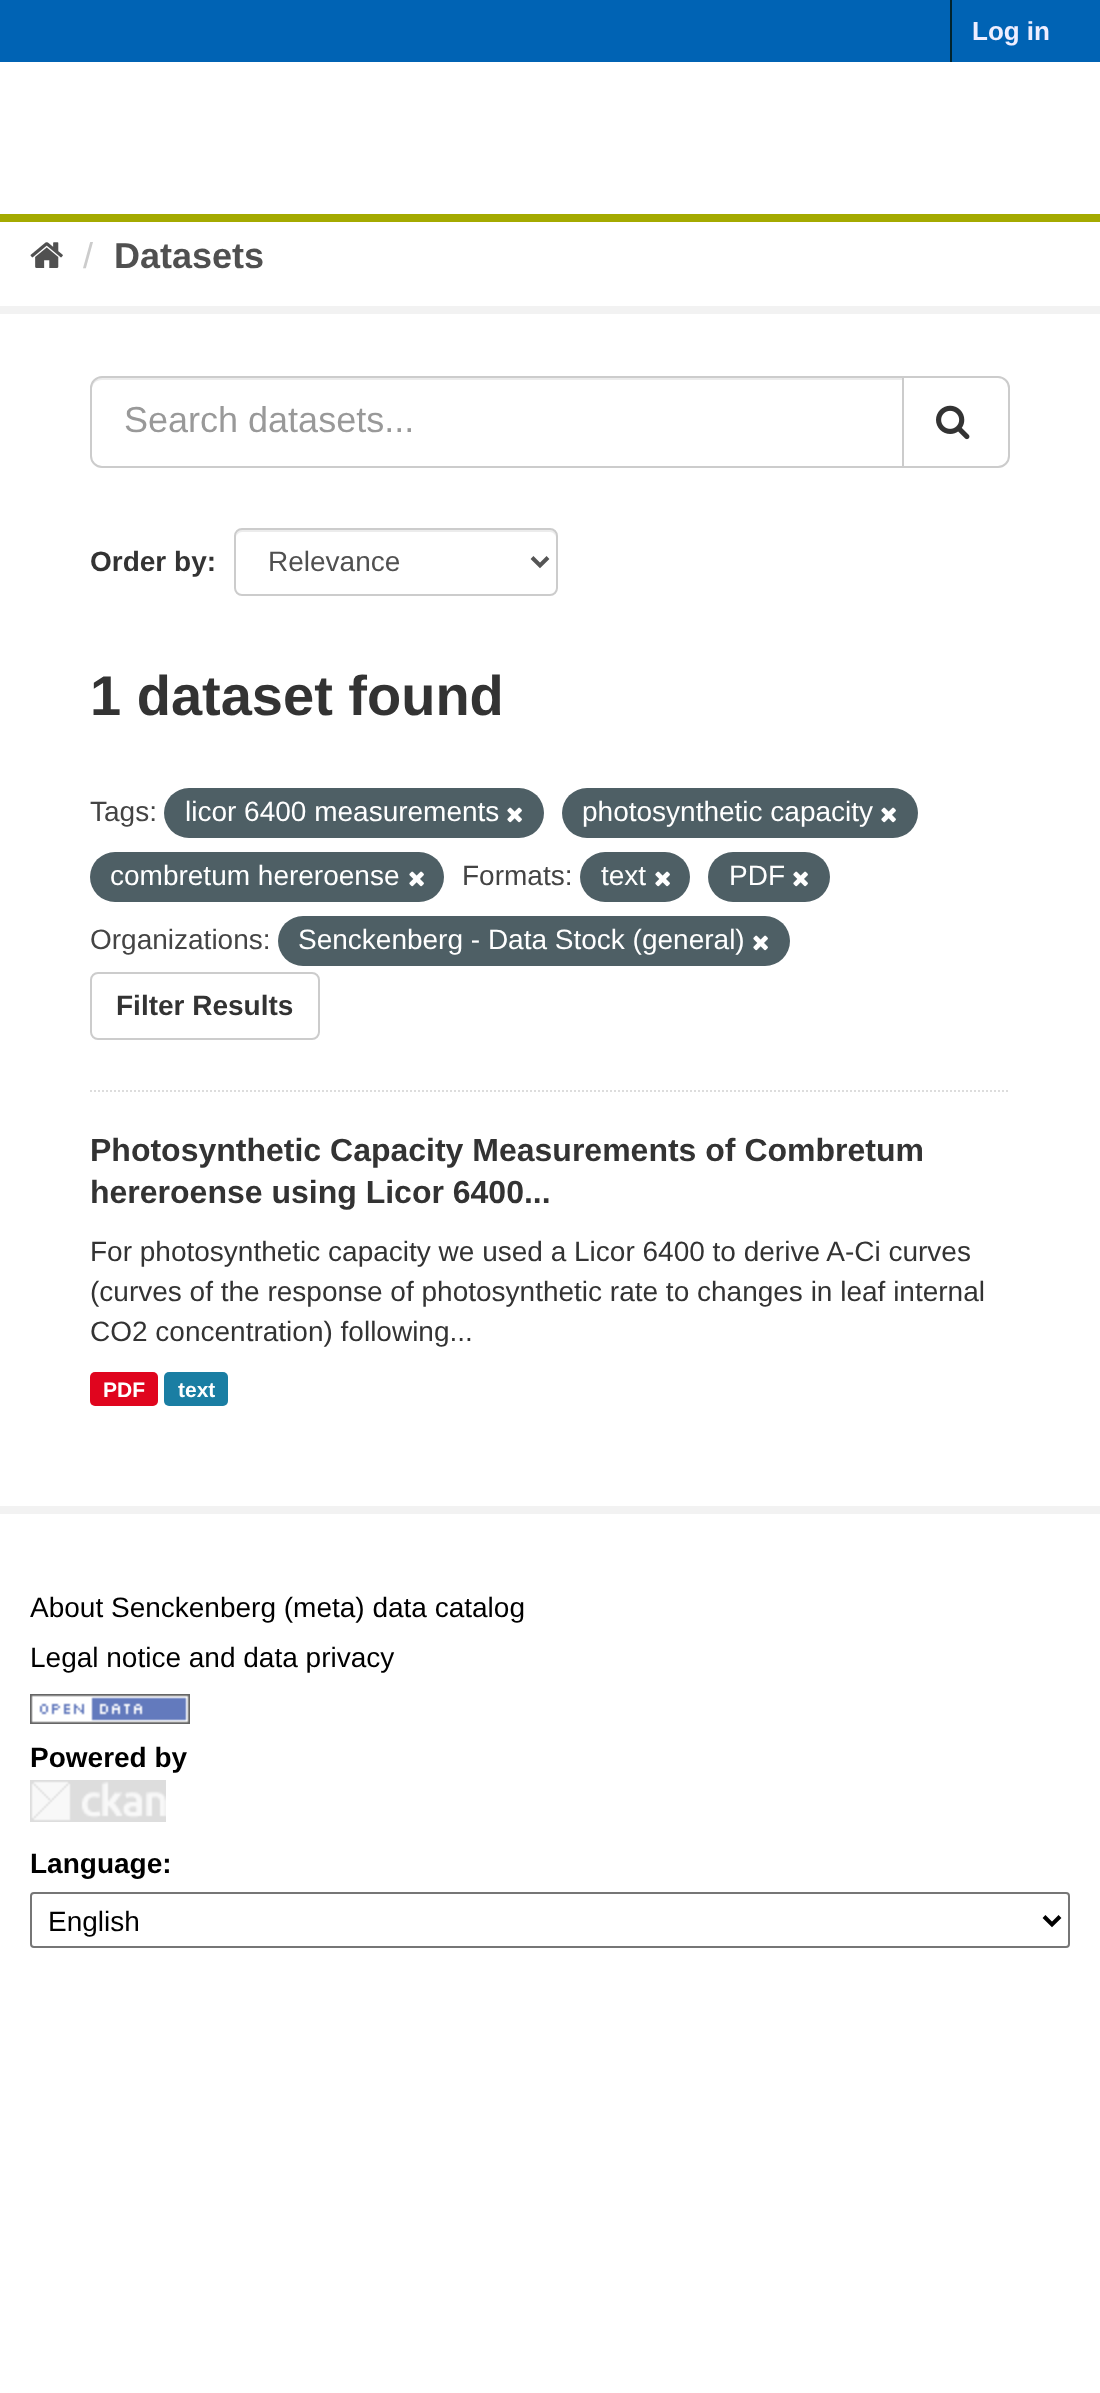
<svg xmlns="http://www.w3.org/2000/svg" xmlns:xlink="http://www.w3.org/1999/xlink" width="1100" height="2393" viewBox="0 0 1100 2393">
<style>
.cls-1{font:bold 26px Liberation Sans;fill:#eeeeff}
.cls-2{font:36px Liberation Sans;fill:#cccccc}
.cls-3{font:bold 36px Liberation Sans;fill:#505050}
.cls-4{font:36px Liberation Sans;fill:#999999}
.cls-5{font:bold 28px Liberation Sans;fill:#333333}
.cls-6{font:28px Liberation Sans;fill:#505050}
.cls-7{font:bold 56px Liberation Sans;fill:#333333}
.cls-8{font:28px Liberation Sans;fill:#444444}
.cls-9{font:28px Liberation Sans;fill:#ffffff}
.cls-10{font:bold 32px Liberation Sans;fill:#333333}
.cls-11{font:28px Liberation Sans;fill:#333333}
.cls-12{font:bold 21px Liberation Sans;fill:#ffffff}
.cls-13{font:28px Liberation Sans;fill:#000000}
.cls-14{font:bold 28px Liberation Sans;fill:#000000}
</style>
<rect width="100%" height="100%" fill="#ffffff"/>
<rect fill="#0063b4" x="0" y="0" width="1100" height="62"/>
<rect fill="#00232e" x="950" y="0" width="2" height="62"/>
<rect fill="#a4aa00" x="0" y="214" width="1100" height="8"/>
<image xlink:href="image0.png" x="30" y="242" width="33" height="26"/>
<rect fill="none" stroke="#f2f2f2" stroke-width="8" x="-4" y="310" width="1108" height="1200"/>
<path fill="none" stroke="#dddddd" stroke-width="2" stroke-dasharray="2 2" d="M90 1091H1010"/>
<path fill="#ececec" d="M102 380H902V378H102C95 378 92 384 92 390C92 384 96 380 102 380Z"/>
<path fill="none" stroke="#cccccc" stroke-width="2" d="M102 377H903V467H102C96 467 91 462 91 456V388C91 382 96 377 102 377Z"/>
<path fill="#ffffff" stroke="#cccccc" stroke-width="2" d="M903 377H998C1004 377 1009 382 1009 388V456C1009 462 1004 467 998 467H903Z"/>
<image xlink:href="image1.png" x="936" y="405" width="34" height="35"/>
<path fill="#ececec" d="M242 532H550C553 532 556 535 556 538C556 534 555 530 550 530H241C237 531 236 535 236 538C236 535 239 532 242 532Z"/>
<rect fill="none" stroke="#cccccc" stroke-width="2" x="235" y="529" width="322" height="66" rx="7"/>
<path fill="none" stroke="#555555" stroke-width="4" d="M532 557.5L540 565.5L548 557.5"/>
<rect fill="#4e5f65" x="164" y="788" width="380" height="50" rx="25"/>
<image xlink:href="image2.png" x="507" y="807" width="15" height="16"/>
<rect fill="#4e5f65" x="562" y="788" width="356" height="50" rx="25"/>
<image xlink:href="image2.png" x="881" y="807" width="15" height="16"/>
<rect fill="#4e5f65" x="90" y="852" width="354" height="50" rx="25"/>
<image xlink:href="image2.png" x="409" y="871" width="15" height="16"/>
<rect fill="#4e5f65" x="580" y="852" width="110" height="50" rx="25"/>
<image xlink:href="image2.png" x="655" y="871" width="15" height="16"/>
<rect fill="#4e5f65" x="708" y="852" width="122" height="50" rx="25"/>
<image xlink:href="image2.png" x="793" y="871" width="15" height="16"/>
<rect fill="#4e5f65" x="278" y="916" width="512" height="50" rx="25"/>
<image xlink:href="image2.png" x="753" y="935" width="15" height="16"/>
<rect fill="none" stroke="#cccccc" stroke-width="2" x="91" y="973" width="228" height="66" rx="7"/>
<rect fill="#e0051e" x="90" y="1372" width="68" height="34" rx="5"/>
<rect fill="#1a7ea3" x="164" y="1372" width="64" height="34" rx="5"/>
<image xlink:href="image3.png" x="30" y="1694" width="160" height="30"/>
<rect fill="#dddddd" x="30" y="1780" width="136" height="42"/>
<image xlink:href="image4.png" x="31" y="1781" width="135" height="40"/>
<rect fill="none" stroke="#767676" stroke-width="2" x="31" y="1893" width="1038" height="54" rx="3"/>
<path fill="none" stroke="#000000" stroke-width="4" d="M1044 1916.5L1052 1924.5L1060 1916.5"/>
<text class="cls-1" x="972" y="40">Log in</text>
<text class="cls-2" x="83" y="268">/</text>
<text class="cls-3" x="114" y="268">Datasets</text>
<text class="cls-4" x="124" y="432">Search datasets...</text>
<text class="cls-5" x="90" y="571">Order by:</text>
<text class="cls-6" x="268" y="571">Relevance</text>
<text class="cls-7" x="90" y="715">1 dataset found</text>
<text class="cls-8" x="90" y="821">Tags:</text>
<text class="cls-9" x="185" y="821">licor 6400 measurements</text>
<text class="cls-9" x="582" y="821">photosynthetic capacity</text>
<text class="cls-9" x="110" y="885">combretum hereroense</text>
<text class="cls-8" x="462" y="885">Formats:</text>
<text class="cls-9" x="601" y="885">text</text>
<text class="cls-9" x="729" y="885">PDF</text>
<text class="cls-8" x="90" y="949">Organizations:</text>
<text class="cls-9" x="298" y="949">Senckenberg - Data Stock (general)</text>
<text class="cls-5" x="116" y="1015">Filter Results</text>
<text class="cls-10"><tspan x="90" y="1161">Photosynthetic Capacity Measurements of Combretum</tspan><tspan x="90" y="1203">hereroense using Licor 6400...</tspan></text>
<text class="cls-11"><tspan x="90" y="1261">For photosynthetic capacity we used a Licor 6400 to derive A-Ci curves</tspan><tspan x="90" y="1301">(curves of the response of photosynthetic rate to changes in leaf internal</tspan><tspan x="90" y="1341">CO2 concentration) following...</tspan></text>
<text class="cls-12" x="103" y="1397">PDF</text>
<text class="cls-12" x="178" y="1397">text</text>
<text class="cls-13"><tspan x="30" y="1617">About Senckenberg (meta) data catalog</tspan><tspan x="30" y="1667">Legal notice and data privacy</tspan></text>
<text class="cls-14" x="30" y="1767">Powered by</text>
<text class="cls-14" x="30" y="1873">Language:</text>
<text class="cls-13" x="48" y="1931">English</text>
</svg>
